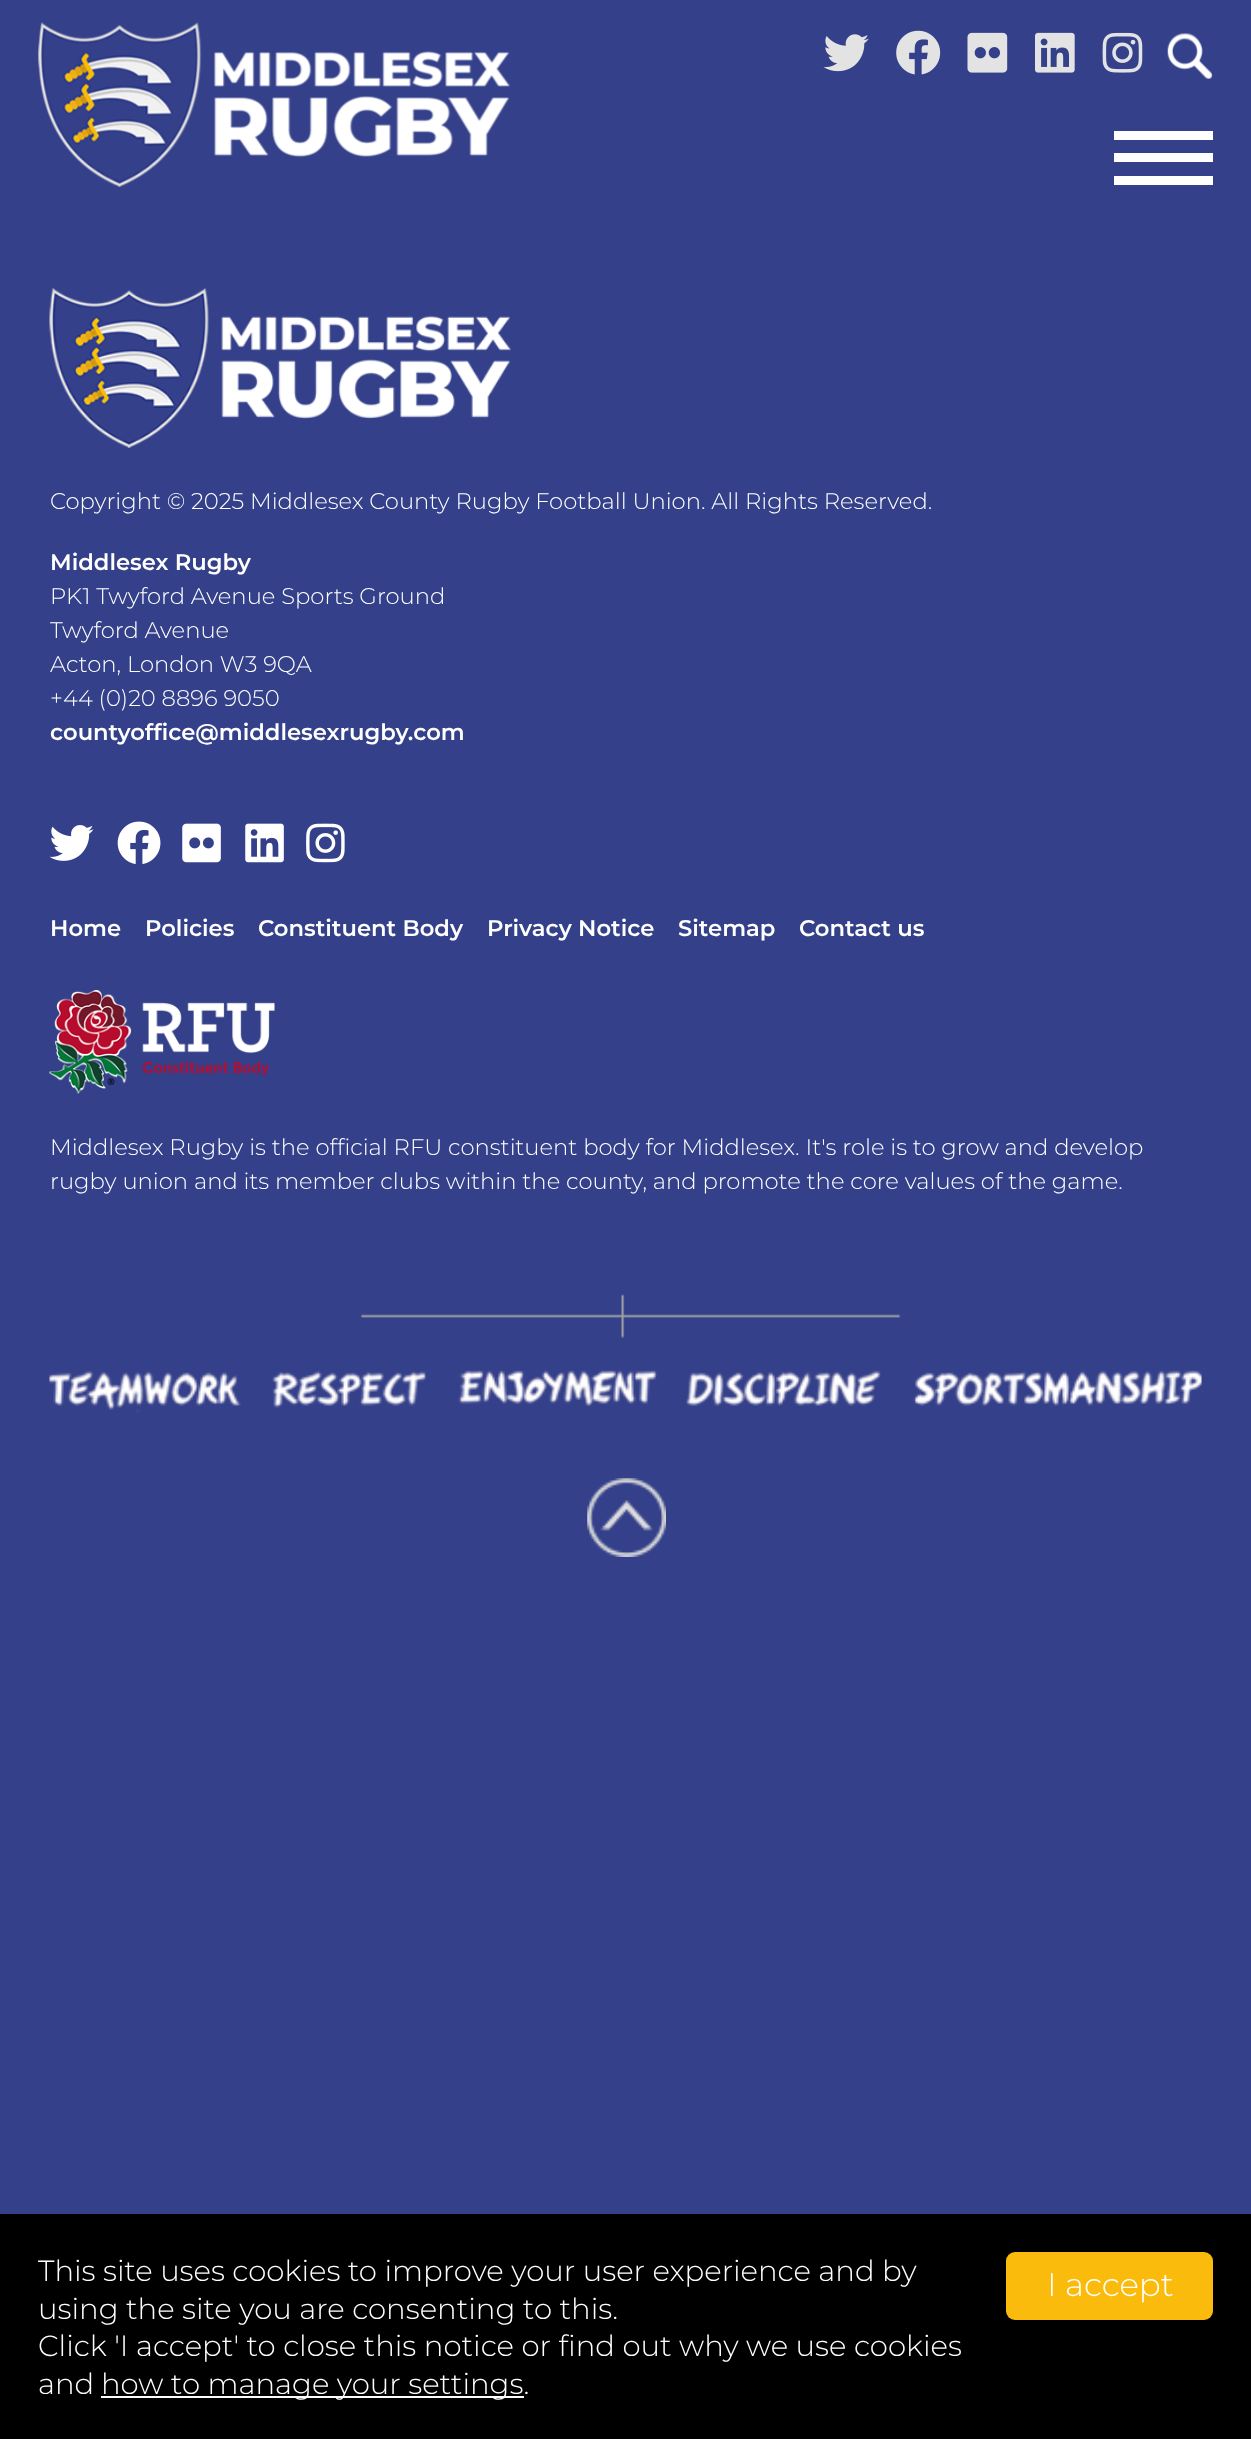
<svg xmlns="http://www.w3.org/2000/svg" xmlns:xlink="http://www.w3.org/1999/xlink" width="1251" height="2439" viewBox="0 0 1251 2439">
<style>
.cls-1{font:300 22.7px Montserrat;fill:#ffffff}
.cls-2{font:600 22.7px Montserrat;fill:#ffffff}
.cls-3{font:300 29.15px Montserrat;fill:#ffffff}
.cls-4{font:300 32.5px Montserrat;fill:#ffffff}
</style>
<rect width="100%" height="100%" fill="#34408a"/>
<image xlink:href="image0.png" x="38" y="22" width="473" height="165"/>
<image xlink:href="image1.png" x="823" y="34" width="46" height="38"/>
<image xlink:href="image2.png" x="896" y="30" width="45" height="45"/>
<image xlink:href="image3.png" x="967" y="32" width="41" height="41"/>
<image xlink:href="image4.png" x="1035" y="32" width="40" height="41"/>
<image xlink:href="image5.png" x="1102" y="32" width="41" height="41"/>
<image xlink:href="image6.png" x="1167" y="33" width="46" height="46"/>
<rect fill="#ffffff" x="1114" y="153" width="99" height="9"/>
<rect fill="#ffffff" x="1114" y="131" width="99" height="9"/>
<rect fill="#ffffff" x="1114" y="176" width="99" height="9"/>
<image xlink:href="image7.png" x="49" y="288" width="462" height="160"/>
<image xlink:href="image8.png" x="49" y="825" width="45" height="36"/>
<image xlink:href="image9.png" x="117" y="821" width="44" height="43"/>
<image xlink:href="image10.png" x="182" y="823" width="39" height="40"/>
<image xlink:href="image11.png" x="245" y="823" width="39" height="40"/>
<image xlink:href="image12.png" x="306" y="823" width="39" height="40"/>
<image xlink:href="image13.png" x="49" y="990" width="226" height="104"/>
<image xlink:href="image14.png" x="49" y="1294" width="1153" height="119"/>
<image xlink:href="image15.png" x="587" y="1478" width="79" height="79"/>
<rect fill="#000000" x="0" y="2214" width="1251" height="225"/>
<rect fill="#ffffff" x="101" y="2396" width="423" height="2"/>
<rect fill="#fbbb0d" x="1006" y="2252" width="207" height="68" rx="9"/>
<text class="cls-1" x="50" y="509">Copyright © 2025 Middlesex County Rugby Football Union. All Rights Reserved.</text>
<text class="cls-2" x="50" y="570">Middlesex Rugby</text>
<text class="cls-1"><tspan x="50" y="604">PK1 Twyford Avenue Sports Ground</tspan><tspan x="50" y="638">Twyford Avenue</tspan><tspan x="50" y="672">Acton, London W3 9QA</tspan><tspan x="50" y="706">+44 (0)20 8896 9050</tspan></text>
<text class="cls-2" x="50" y="740">countyoffice@middlesexrugby.com</text>
<text class="cls-2" x="50" y="936">Home</text>
<text class="cls-2" x="145" y="936">Policies</text>
<text class="cls-2" x="258" y="936">Constituent Body</text>
<text class="cls-2" x="487" y="936">Privacy Notice</text>
<text class="cls-2" x="678" y="936">Sitemap</text>
<text class="cls-2" x="799" y="936">Contact us</text>
<text class="cls-1"><tspan x="50" y="1155">Middlesex Rugby is the official RFU constituent body for Middlesex. It's role is to grow and develop</tspan><tspan x="50" y="1189">rugby union and its member clubs within the county, and promote the core values of the game.</tspan></text>
<text class="cls-3"><tspan x="38" y="2281">This site uses cookies to improve your user experience and by</tspan><tspan x="38" y="2319">using the site you are consenting to this.</tspan><tspan x="38" y="2356">Click 'I accept' to close this notice or find out why we use cookies</tspan><tspan x="38" y="2394">and</tspan></text>
<text class="cls-3" x="101" y="2394">how to manage your settings.</text>
<text class="cls-4" x="1047" y="2296">I accept</text>
</svg>
